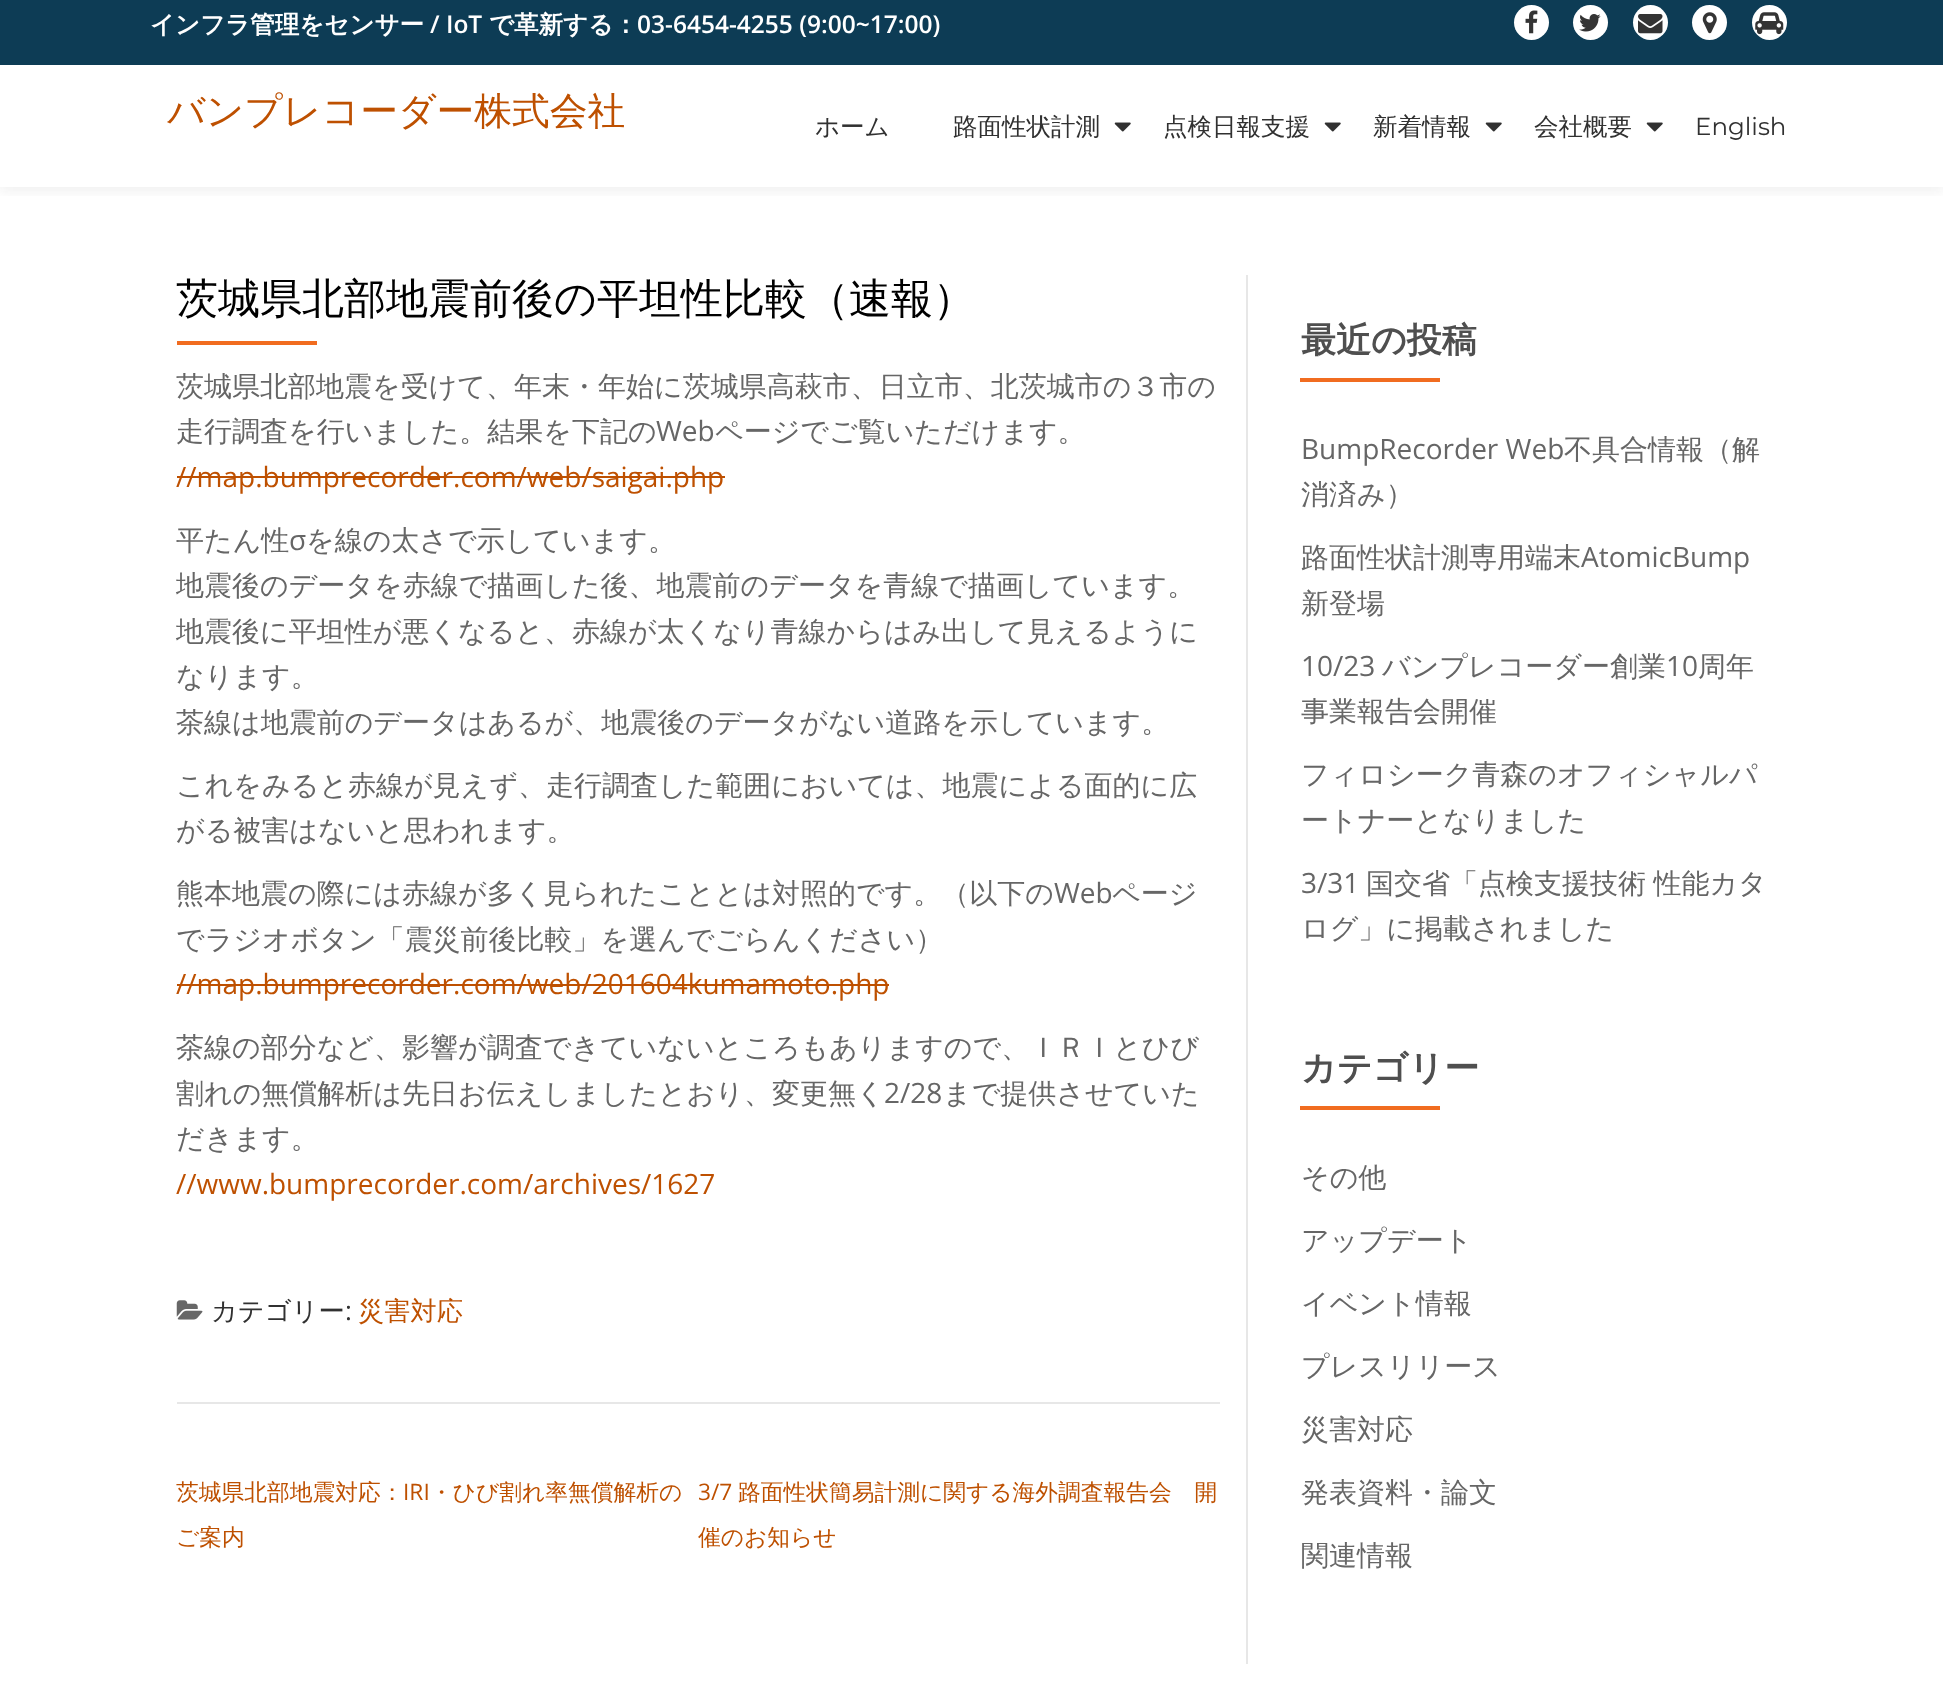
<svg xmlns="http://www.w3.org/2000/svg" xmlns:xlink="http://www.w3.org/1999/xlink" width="1943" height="1686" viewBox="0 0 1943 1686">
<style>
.cls-1{font:bold 24.5px WenQuanYi Zen Hei;fill:#ffffff}
.cls-2{font:600 24.5px Open Sans;fill:#ffffff}
.cls-3{font:500 37.75px WenQuanYi Zen Hei;fill:#be5000}
.cls-4{font:500 24.5px WenQuanYi Zen Hei;fill:#313131}
.cls-5{font:24.5px Montserrat;fill:#313131}
.cls-6{font:500 42px WenQuanYi Zen Hei;fill:#000000}
.cls-7{font:500 28px WenQuanYi Zen Hei;fill:#666666}
.cls-8{font:28px Open Sans;fill:#666666}
.cls-9{font:28px Open Sans;fill:#be5000}
.cls-10{font:500 26.25px WenQuanYi Zen Hei;fill:#313131}
.cls-11{font:26.25px Open Sans;fill:#313131}
.cls-12{font:500 26.25px WenQuanYi Zen Hei;fill:#be5000}
.cls-13{font:500 22.75px WenQuanYi Zen Hei;fill:#be5000}
.cls-14{font:22.75px Open Sans;fill:#be5000}
.cls-15{font:bold 35px WenQuanYi Zen Hei;fill:#4f4f4f}
</style>
<defs>
<clipPath id="clip1"><rect x="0" y="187" width="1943" height="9"/></clipPath>
</defs>
<rect width="100%" height="100%" fill="#ffffff"/>
<g clip-path="url(#clip1)">
<rect fill="#323232" fill-opacity="0.08" filter="blur(7px)" x="0" y="-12" width="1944" height="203"/>
</g>
<rect fill="#0d3c55" x="0" y="0" width="1943" height="65"/>
<circle fill="#ffffff" cx="1531.5" cy="22.5" r="17.5"/>
<image xlink:href="image0.png" x="1525" y="10" width="13" height="24"/>
<circle fill="#ffffff" cx="1590.5" cy="22.5" r="17.5"/>
<image xlink:href="image1.png" x="1579" y="14" width="22" height="18"/>
<circle fill="#ffffff" cx="1650.5" cy="22.5" r="17.5"/>
<image xlink:href="image2.png" x="1638" y="14" width="25" height="20"/>
<circle fill="#ffffff" cx="1709.5" cy="22.5" r="17.5"/>
<image xlink:href="image3.png" x="1702" y="12" width="15" height="22"/>
<circle fill="#ffffff" cx="1769.5" cy="22.5" r="17.5"/>
<image xlink:href="image4.png" x="1755" y="12" width="29" height="23"/>
<image xlink:href="image5.png" x="1114" y="122" width="17" height="10"/>
<image xlink:href="image5.png" x="1324" y="122" width="17" height="10"/>
<image xlink:href="image5.png" x="1485" y="122" width="17" height="10"/>
<image xlink:href="image5.png" x="1646" y="122" width="17" height="10"/>
<rect fill="#f16c20" x="177" y="341" width="140" height="4"/>
<rect fill="#be5000" x="177" y="476" width="548" height="2"/>
<rect fill="#be5000" x="177" y="984" width="712" height="2"/>
<image xlink:href="image6.png" x="176" y="1300" width="27" height="20"/>
<rect fill="#e7e7e7" x="177" y="1402" width="1043" height="2"/>
<rect fill="#e7e7e7" x="1246" y="275" width="2" height="1389"/>
<rect fill="#f16c20" x="1300" y="378" width="140" height="4"/>
<rect fill="#f16c20" x="1300" y="1106" width="140" height="4"/>
<text class="cls-1" x="150" y="33">インフラ管理をセンサー</text>
<text class="cls-2" x="430" y="33">/ IoT</text>
<text class="cls-1" x="489" y="33">で革新する：</text>
<text class="cls-2" x="637" y="33">03-6454-4255 (9:00~17:00)</text>
<text class="cls-3" x="167" y="124">バンプレコーダー株式会社</text>
<text class="cls-4" x="815" y="135">ホーム</text>
<text class="cls-4" x="953" y="135">路面性状計測</text>
<text class="cls-4" x="1163" y="135">点検日報支援</text>
<text class="cls-4" x="1373" y="135">新着情報</text>
<text class="cls-4" x="1534" y="135">会社概要</text>
<text class="cls-5" x="1695" y="135">English</text>
<text class="cls-6" x="176" y="313">茨城県北部地震前後の平坦性比較（速報）</text>
<text class="cls-7"><tspan x="176" y="396">茨城県北部地震を受けて、年末・年始に茨城県高萩市、日立市、北茨城市の３市の</tspan><tspan x="176" y="441">走行調査を行いました。結果を下記の</tspan></text>
<text class="cls-8" x="656" y="441">Web</text>
<text class="cls-7" x="715" y="441">ページでご覧いただけます。</text>
<text class="cls-9" x="176" y="487">//map.bumprecorder.com/web/saigai.php</text>
<text class="cls-7" x="176" y="550">平たん性</text>
<text class="cls-8" x="289" y="550">σ</text>
<text class="cls-7" x="306" y="550">を線の太さで示しています。</text>
<text class="cls-7"><tspan x="176" y="595">地震後のデータを赤線で描画した後、地震前のデータを青線で描画しています。</tspan><tspan x="176" y="641">地震後に平坦性が悪くなると、赤線が太くなり青線からはみ出して見えるように</tspan><tspan x="176" y="686">なります。</tspan><tspan x="176" y="732">茶線は地震前のデータはあるが、地震後のデータがない道路を示しています。</tspan></text>
<text class="cls-7"><tspan x="176" y="795">これをみると赤線が見えず、走行調査した範囲においては、地震による面的に広</tspan><tspan x="176" y="840">がる被害はないと思われます。</tspan></text>
<text class="cls-7" x="176" y="903">熊本地震の際には赤線が多く見られたこととは対照的です。（以下の</text>
<text class="cls-8" x="1054" y="903">Web</text>
<text class="cls-7" x="1112" y="903">ページ</text>
<text class="cls-7" x="176" y="949">でラジオボタン「震災前後比較」を選んでごらんください）</text>
<text class="cls-9" x="176" y="994">//map.bumprecorder.com/web/201604kumamoto.php</text>
<text class="cls-7"><tspan x="176" y="1057">茶線の部分など、影響が調査できていないところもありますので、ＩＲＩとひび</tspan><tspan x="176" y="1103">割れの無償解析は先日お伝えしましたとおり、変更無く</tspan></text>
<text class="cls-8" x="884" y="1103">2/28</text>
<text class="cls-7" x="943" y="1103">まで提供させていた</text>
<text class="cls-7" x="176" y="1148">だきます。</text>
<text class="cls-9" x="176" y="1194">//www.bumprecorder.com/archives/1627</text>
<text class="cls-10" x="211" y="1320">カテゴリー</text>
<text class="cls-11" x="345" y="1320">:</text>
<text class="cls-12" x="358" y="1320">災害対応</text>
<text class="cls-13" x="176" y="1500">茨城県北部地震対応：</text>
<text class="cls-14" x="403" y="1500">IRI</text>
<text class="cls-13" x="430" y="1500">・ひび割れ率無償解析の</text>
<text class="cls-13" x="176" y="1545">ご案内</text>
<text class="cls-14" x="698" y="1500">3/7</text>
<text class="cls-13" x="738" y="1500">路面性状簡易計測に関する海外調査報告会　開</text>
<text class="cls-13" x="698" y="1545">催のお知らせ</text>
<text class="cls-15" x="1301" y="352">最近の投稿</text>
<text class="cls-8" x="1301" y="459">BumpRecorder Web</text>
<text class="cls-7" x="1564" y="459">不具合情報（解</text>
<text class="cls-7" x="1301" y="504">消済み）</text>
<text class="cls-7" x="1301" y="567">路面性状計測専用端末</text>
<text class="cls-8" x="1581" y="567">AtomicBump</text>
<text class="cls-7" x="1301" y="613">新登場</text>
<text class="cls-8" x="1301" y="676">10/23</text>
<text class="cls-7" x="1382" y="676">バンプレコーダー創業</text>
<text class="cls-8" x="1666" y="676">10</text>
<text class="cls-7" x="1698" y="676">周年</text>
<text class="cls-7" x="1301" y="721">事業報告会開催</text>
<text class="cls-7"><tspan x="1301" y="784">フィロシーク青森のオフィシャルパ</tspan><tspan x="1301" y="830">ートナーとなりました</tspan></text>
<text class="cls-8" x="1301" y="893">3/31</text>
<text class="cls-7" x="1366" y="893" word-spacing="-1">国交省「点検支援技術 性能カタ</text>
<text class="cls-7" x="1301" y="938">ログ」に掲載されました</text>
<text class="cls-15" x="1301" y="1080">カテゴリー</text>
<text class="cls-7" x="1301" y="1187">その他</text>
<text class="cls-7" x="1301" y="1250">アップデート</text>
<text class="cls-7" x="1301" y="1313">イベント情報</text>
<text class="cls-7" x="1301" y="1376">プレスリリース</text>
<text class="cls-7" x="1301" y="1439">災害対応</text>
<text class="cls-7" x="1301" y="1502">発表資料・論文</text>
<text class="cls-7" x="1301" y="1565">関連情報</text>
</svg>
